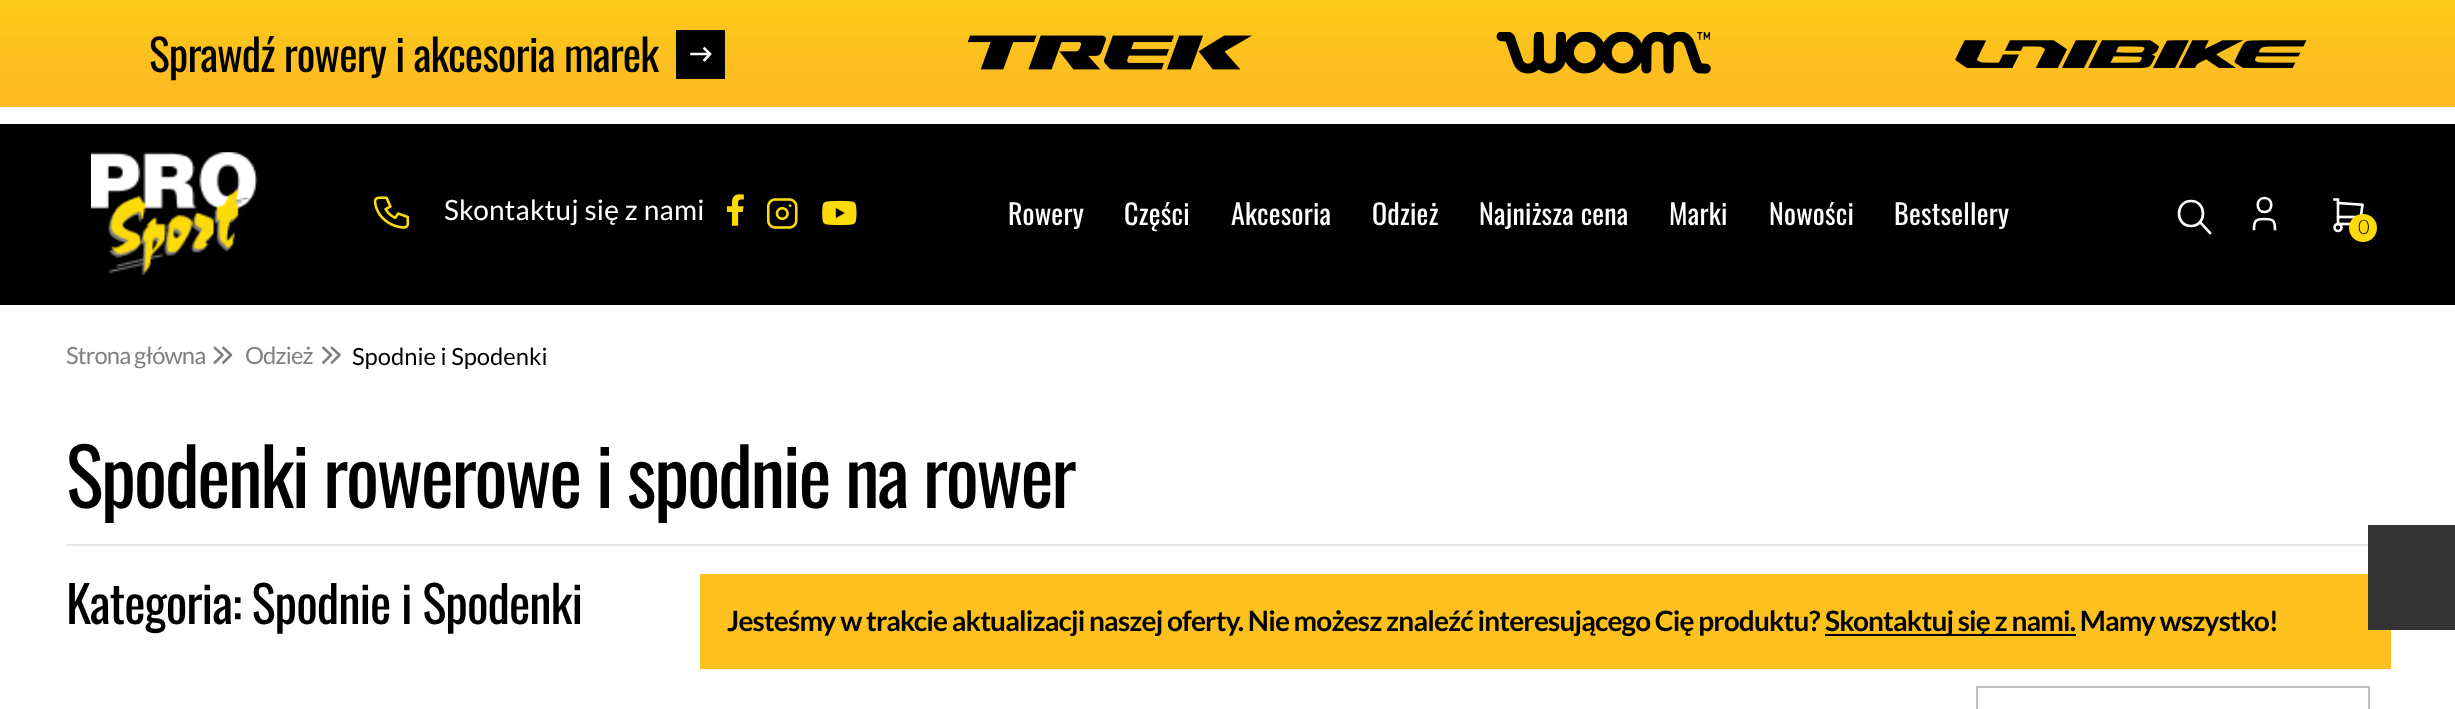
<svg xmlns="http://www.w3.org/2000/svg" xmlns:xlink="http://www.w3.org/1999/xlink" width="2455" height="709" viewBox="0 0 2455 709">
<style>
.cls-1{font:43.75px Oswald;letter-spacing:-0.9px;fill:#000000}
.cls-2{font:28px Lato;letter-spacing:0.25px;fill:#ffffff}
.cls-3{font:28px Oswald;letter-spacing:0.25px;fill:#ffffff}
.cls-4{font:300 20px Lato;fill:#000000}
.cls-5{font:23.75px Lato;letter-spacing:-0.85px;fill:#808080}
.cls-6{font:23.75px Lato;fill:#000000}
.cls-7{font:78.75px Oswald;letter-spacing:-2.35px;fill:#000000}
.cls-8{font:50.75px Oswald;letter-spacing:-1px;fill:#000000}
.cls-9{font:bold 28px Lato;letter-spacing:-0.85px;fill:#000000}
</style>
<rect width="100%" height="100%" fill="#ffffff"/>
<rect fill="#000000" x="0" y="124" width="2455" height="181"/>
<image xlink:href="image0.png" x="0" y="0" width="2455" height="107"/>
<rect fill="#000000" x="676" y="30" width="49" height="49"/>
<path fill="none" stroke="#ffffff" stroke-width="2.6" stroke-linecap="square" stroke-linejoin="round" d="M709.5 54H691.5M710 54L704.5 60M710 54L704.5 48.5"/>
<image xlink:href="image1.png" x="968" y="35" width="284" height="35"/>
<image xlink:href="image2.png" x="1496" y="32" width="215" height="42"/>
<image xlink:href="image3.png" x="1955" y="40" width="352" height="28"/>
<image xlink:href="image4.png" x="91" y="152" width="167" height="123"/>
<image xlink:href="image5.png" x="373" y="196" width="37" height="33"/>
<image xlink:href="image6.png" x="726" y="194" width="18" height="32"/>
<image xlink:href="image7.png" x="766" y="198" width="32" height="31"/>
<image xlink:href="image8.png" x="822" y="200" width="35" height="26"/>
<path fill="none" stroke="#ffffff" stroke-width="2.6" stroke-linecap="round" stroke-linejoin="round" d="M2191 226C2207 226 2207 201 2191 201C2175 201 2175 226 2191 226Z"/>
<path fill="none" stroke="#ffffff" stroke-width="2.6" stroke-linecap="square" stroke-linejoin="round" d="M2210 233L2200 222"/>
<path fill="none" stroke="#ffffff" stroke-width="2.6" stroke-linecap="round" stroke-linejoin="round" d="M2264.5 212C2273.5 212 2273.5 198 2264.5 198C2255.5 198 2255.5 212 2264.5 212Z"/>
<path fill="none" stroke="#ffffff" stroke-width="2.6" stroke-linecap="square" stroke-linejoin="round" d="M2254 229C2254 220.5 2256 219 2264.5 219C2273 219 2275 220.5 2275 229"/>
<image xlink:href="image9.png" x="2333" y="198" width="31" height="35"/>
<circle fill="#fddb0b" cx="2363" cy="228" r="14"/>
<path fill="none" stroke="#808080" stroke-width="2.6" stroke-linecap="square" stroke-linejoin="round" d="M215 348L222.5 355L215 362.5M223.5 348L231 355L223.5 362.5"/>
<path fill="none" stroke="#808080" stroke-width="2.6" stroke-linecap="square" stroke-linejoin="round" d="M323.5 348L331 355L323.5 362.5M332 348L339.5 355L332 362.5"/>
<rect fill="#e6e6e6" x="67" y="544" width="2301" height="2"/>
<rect fill="#fcc11e" x="700" y="574" width="1691" height="95"/>
<rect fill="#000000" x="1825" y="634" width="251" height="2"/>
<rect fill="none" stroke="#bfbfbf" stroke-width="2" x="1977" y="687" width="392" height="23"/>
<rect fill="#333333" x="2368" y="525" width="87" height="105"/>
<text class="cls-1" x="149" y="72">Sprawdź rowery i akcesoria marek</text>
<text class="cls-2" x="444" y="220">Skontaktuj się z nami</text>
<text class="cls-3" x="1008" y="225">Rowery</text>
<text class="cls-3" x="1124" y="225">Części</text>
<text class="cls-3" x="1231" y="225">Akcesoria</text>
<text class="cls-3" x="1372" y="225">Odzież</text>
<text class="cls-3" x="1479" y="225">Najniższa cena</text>
<text class="cls-3" x="1669" y="225">Marki</text>
<text class="cls-3" x="1769" y="225">Nowości</text>
<text class="cls-3" x="1894" y="225">Bestsellery</text>
<text class="cls-4" x="2358" y="234">0</text>
<text class="cls-5" x="66" y="364">Strona główna</text>
<text class="cls-5" x="245" y="364">Odzież</text>
<text class="cls-6" x="352" y="365">Spodnie i Spodenki</text>
<text class="cls-7" x="66" y="508">Spodenki rowerowe i spodnie na rower</text>
<text class="cls-8" x="66" y="624">Kategoria: Spodnie i Spodenki</text>
<text class="cls-9" x="727" y="631">Jesteśmy w trakcie aktualizacji naszej oferty. Nie możesz znaleźć interesującego Cię produktu?</text>
<text class="cls-9" x="1825" y="631">Skontaktuj się z nami. Mamy wszystko!</text>
</svg>
